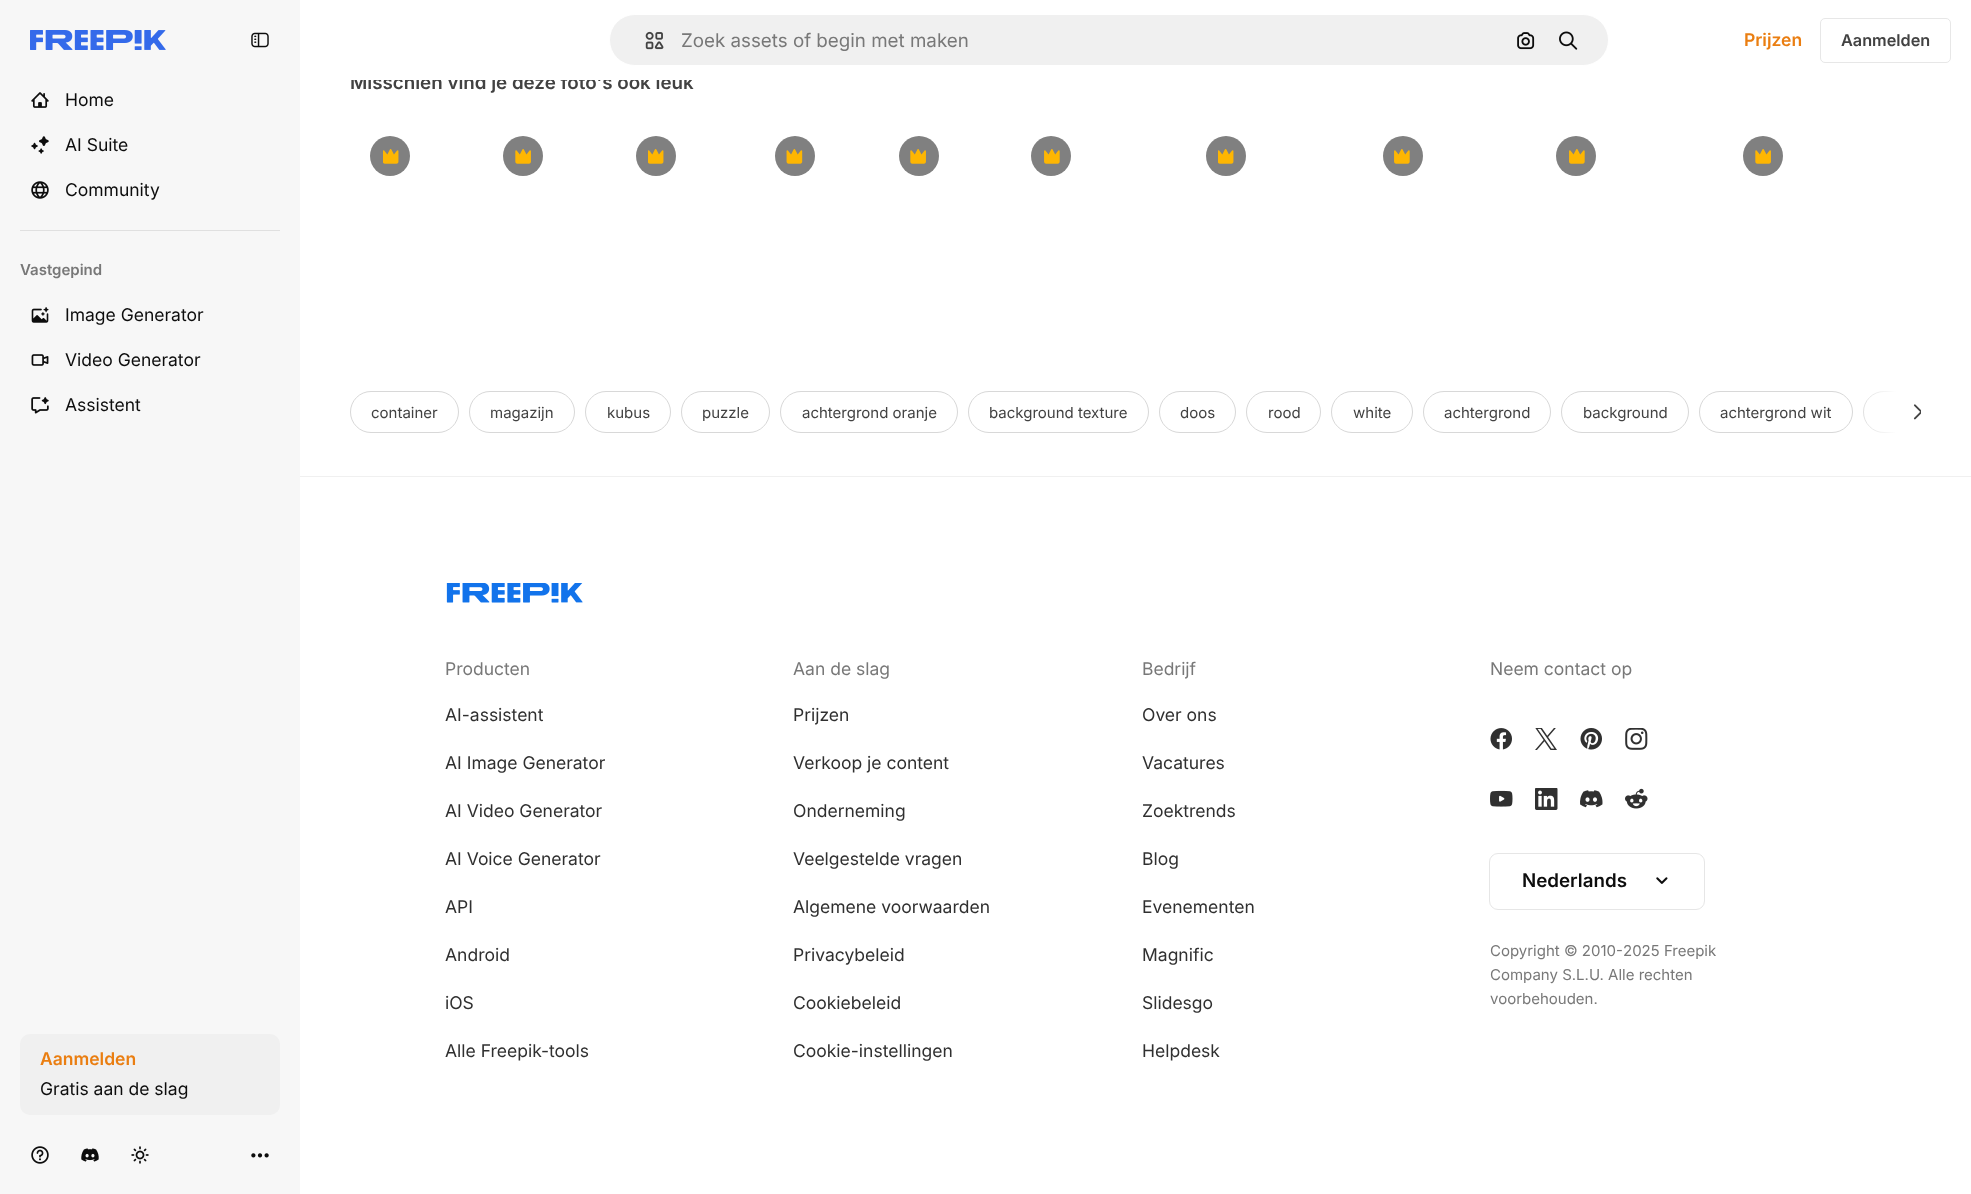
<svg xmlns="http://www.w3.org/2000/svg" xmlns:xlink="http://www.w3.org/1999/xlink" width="1971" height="1194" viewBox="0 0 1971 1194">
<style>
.cls-1{font:17.5px Inter;fill:#0d0d0d}
.cls-2{font:600 15px Inter;fill:#787878}
.cls-3{font:600 17.5px Inter;fill:#ea7e11}
.cls-4{font:18.75px Inter;fill:#787878}
.cls-5{font:600 16.25px Inter;fill:#424242}
.cls-6{font:600 18.75px Inter;fill:#424242}
.cls-7{font:15px Inter;fill:#424242}
.cls-8{font:17.5px Inter;fill:#787878}
.cls-9{font:17.5px Inter;fill:#303030}
.cls-10{font:600 18.75px Inter;fill:#0d0d0d}
.cls-11{font:15px Inter;fill:#787878}
</style>
<defs>
<clipPath id="clip1"><rect x="350" y="391" width="1571" height="42"/></clipPath>
<linearGradient id="g1" gradientUnits="userSpaceOnUse" x1="1896" y1="412" x2="1853" y2="412"><stop offset="0" stop-color="#ffffff"/><stop offset="1" stop-color="#ffffff" stop-opacity="0"/></linearGradient>
</defs>
<rect width="100%" height="100%" fill="#ffffff"/>
<rect fill="#f7f7f7" x="0" y="0" width="300" height="1194"/>
<image xlink:href="image0.png" x="30" y="30" width="136" height="20"/>
<image xlink:href="image1.png" x="251" y="32" width="18" height="16"/>
<image xlink:href="image2.png" x="31" y="92" width="18" height="16"/>
<image xlink:href="image3.png" x="31" y="136" width="18" height="18"/>
<image xlink:href="image4.png" x="31" y="181" width="18" height="18"/>
<rect fill="#e0e0e0" x="20" y="230" width="260" height="1"/>
<image xlink:href="image5.png" x="31" y="307" width="18" height="16"/>
<image xlink:href="image6.png" x="31" y="354" width="18" height="12"/>
<image xlink:href="image7.png" x="31" y="397" width="18" height="17"/>
<rect fill="#f0f0f0" x="20" y="1034" width="260" height="81" rx="10"/>
<image xlink:href="image8.png" x="31" y="1146" width="18" height="18"/>
<image xlink:href="image9.png" x="81" y="1148" width="18" height="14"/>
<image xlink:href="image10.png" x="131" y="1146" width="18" height="18"/>
<image xlink:href="image11.png" x="251" y="1153" width="18" height="5"/>
<rect fill="#f0f0f0" stroke="#ffffff" x="609.5" y="14.5" width="999" height="51" rx="25.5"/>
<image xlink:href="image12.png" x="645" y="31" width="19" height="19"/>
<image xlink:href="image13.png" x="1517" y="32" width="18" height="18"/>
<image xlink:href="image14.png" x="1559" y="31" width="19" height="19"/>
<rect fill="none" stroke="#e7e7e7" x="1820.5" y="18.5" width="130" height="44" rx="4.5"/>
<circle fill="#808080" cx="390" cy="156" r="20"/>
<image xlink:href="image15.png" x="383" y="149" width="16" height="15"/>
<circle fill="#808080" cx="523" cy="156" r="20"/>
<image xlink:href="image16.png" x="515" y="149" width="16" height="15"/>
<circle fill="#808080" cx="656" cy="156" r="20"/>
<image xlink:href="image15.png" x="648" y="149" width="16" height="15"/>
<circle fill="#808080" cx="795" cy="156" r="20"/>
<image xlink:href="image17.png" x="786" y="149" width="17" height="15"/>
<circle fill="#808080" cx="919" cy="156" r="20"/>
<image xlink:href="image16.png" x="910" y="149" width="16" height="15"/>
<circle fill="#808080" cx="1051" cy="156" r="20"/>
<image xlink:href="image18.png" x="1044" y="149" width="16" height="15"/>
<circle fill="#808080" cx="1226" cy="156" r="20"/>
<image xlink:href="image15.png" x="1218" y="149" width="16" height="15"/>
<circle fill="#808080" cx="1403" cy="156" r="20"/>
<image xlink:href="image18.png" x="1394" y="149" width="16" height="15"/>
<circle fill="#808080" cx="1576" cy="156" r="20"/>
<image xlink:href="image18.png" x="1569" y="149" width="16" height="15"/>
<circle fill="#808080" cx="1763" cy="156" r="20"/>
<image xlink:href="image16.png" x="1755" y="149" width="16" height="15"/>
<rect fill="none" stroke="#d8d8d8" x="350.5" y="391.5" width="108" height="41" rx="20.5"/>
<rect fill="none" stroke="#d8d8d8" x="469.5" y="391.5" width="105" height="41" rx="20.5"/>
<rect fill="none" stroke="#d8d8d8" x="585.5" y="391.5" width="85" height="41" rx="20.5"/>
<rect fill="none" stroke="#d8d8d8" x="681.5" y="391.5" width="88" height="41" rx="20.5"/>
<rect fill="none" stroke="#d8d8d8" x="780.5" y="391.5" width="177" height="41" rx="20.5"/>
<rect fill="none" stroke="#d8d8d8" x="968.5" y="391.5" width="180" height="41" rx="20.5"/>
<rect fill="none" stroke="#d8d8d8" x="1159.5" y="391.5" width="76" height="41" rx="20.5"/>
<rect fill="none" stroke="#d8d8d8" x="1246.5" y="391.5" width="74" height="41" rx="20.5"/>
<rect fill="none" stroke="#d8d8d8" x="1331.5" y="391.5" width="81" height="41" rx="20.5"/>
<rect fill="none" stroke="#d8d8d8" x="1423.5" y="391.5" width="127" height="41" rx="20.5"/>
<rect fill="none" stroke="#d8d8d8" x="1561.5" y="391.5" width="127" height="41" rx="20.5"/>
<rect fill="none" stroke="#d8d8d8" x="1699.5" y="391.5" width="153" height="41" rx="20.5"/>
<g clip-path="url(#clip1)">
<rect fill="none" stroke="#d8d8d8" x="1863.5" y="391.5" width="91" height="41" rx="20.5"/>
</g>
<rect fill="#ffffff" x="1896" y="391" width="25" height="42"/>
<rect fill="url(#g1)" x="1863" y="391" width="33" height="42"/>
<image xlink:href="image19.png" x="1913" y="404" width="8" height="16"/>
<rect fill="#f0f0f0" x="300" y="476" width="1671" height="1"/>
<image xlink:href="image20.png" x="446" y="583" width="137" height="20"/>
<image xlink:href="image21.png" x="1490" y="728" width="22" height="22"/>
<image xlink:href="image22.png" x="1535" y="728" width="22" height="22"/>
<image xlink:href="image23.png" x="1580" y="728" width="22" height="22"/>
<image xlink:href="image24.png" x="1625" y="728" width="23" height="22"/>
<image xlink:href="image25.png" x="1490" y="790" width="23" height="17"/>
<image xlink:href="image26.png" x="1535" y="788" width="23" height="22"/>
<image xlink:href="image27.png" x="1580" y="790" width="23" height="18"/>
<image xlink:href="image28.png" x="1625" y="788" width="23" height="21"/>
<rect fill="none" stroke="#e6e6e6" x="1489.5" y="853.5" width="215" height="56" rx="8.5"/>
<image xlink:href="image29.png" x="1656" y="877" width="12" height="7"/>
<text class="cls-1" x="65" y="106">Home</text>
<text class="cls-1" x="65" y="151">AI Suite</text>
<text class="cls-1" x="65" y="196">Community</text>
<text class="cls-2" x="20" y="275">Vastgepind</text>
<text class="cls-1" x="65" y="321">Image Generator</text>
<text class="cls-1" x="65" y="366">Video Generator</text>
<text class="cls-1" x="65" y="411">Assistent</text>
<text class="cls-3" x="40" y="1065">Aanmelden</text>
<text class="cls-1" x="40" y="1095">Gratis aan de slag</text>
<text class="cls-4" x="681" y="47">Zoek assets of begin met maken</text>
<text class="cls-3" x="1744" y="46">Prijzen</text>
<text class="cls-5" x="1841" y="46">Aanmelden</text>
<text class="cls-6" x="350" y="89">Misschien vind je deze foto's ook leuk</text>
<rect fill="#ffffff" x="351" y="74" width="343" height="6"/>
<text class="cls-7" x="371" y="418">container</text>
<text class="cls-7" x="490" y="418">magazijn</text>
<text class="cls-7" x="607" y="418">kubus</text>
<text class="cls-7" x="702" y="418">puzzle</text>
<text class="cls-7" x="802" y="418">achtergrond oranje</text>
<text class="cls-7" x="989" y="418">background texture</text>
<text class="cls-7" x="1180" y="418">doos</text>
<text class="cls-7" x="1268" y="418">rood</text>
<text class="cls-7" x="1353" y="418">white</text>
<text class="cls-7" x="1444" y="418">achtergrond</text>
<text class="cls-7" x="1583" y="418">background</text>
<text class="cls-7" x="1720" y="418">achtergrond wit</text>
<text class="cls-8" x="445" y="675">Producten</text>
<text class="cls-9" x="445" y="721">AI-assistent</text>
<text class="cls-9" x="445" y="769">AI Image Generator</text>
<text class="cls-9" x="445" y="817">AI Video Generator</text>
<text class="cls-9" x="445" y="865">AI Voice Generator</text>
<text class="cls-9" x="445" y="913">API</text>
<text class="cls-9" x="445" y="961">Android</text>
<text class="cls-9" x="445" y="1009">iOS</text>
<text class="cls-9" x="445" y="1057">Alle Freepik-tools</text>
<text class="cls-8" x="793" y="675">Aan de slag</text>
<text class="cls-9" x="793" y="721">Prijzen</text>
<text class="cls-9" x="793" y="769">Verkoop je content</text>
<text class="cls-9" x="793" y="817">Onderneming</text>
<text class="cls-9" x="793" y="865">Veelgestelde vragen</text>
<text class="cls-9" x="793" y="913">Algemene voorwaarden</text>
<text class="cls-9" x="793" y="961">Privacybeleid</text>
<text class="cls-9" x="793" y="1009">Cookiebeleid</text>
<text class="cls-9" x="793" y="1057">Cookie-instellingen</text>
<text class="cls-8" x="1142" y="675">Bedrijf</text>
<text class="cls-9" x="1142" y="721">Over ons</text>
<text class="cls-9" x="1142" y="769">Vacatures</text>
<text class="cls-9" x="1142" y="817">Zoektrends</text>
<text class="cls-9" x="1142" y="865">Blog</text>
<text class="cls-9" x="1142" y="913">Evenementen</text>
<text class="cls-9" x="1142" y="961">Magnific</text>
<text class="cls-9" x="1142" y="1009">Slidesgo</text>
<text class="cls-9" x="1142" y="1057">Helpdesk</text>
<text class="cls-8" x="1490" y="675">Neem contact op</text>
<text class="cls-10" x="1522" y="887">Nederlands</text>
<text class="cls-11" x="1490" y="956">Copyright © 2010-</text>
<text class="cls-11" x="1623" y="956">2025 Freepik</text>
<text class="cls-11"><tspan x="1490" y="980">Company S.L.U. Alle rechten</tspan><tspan x="1490" y="1004">voorbehouden.</tspan></text>
</svg>
